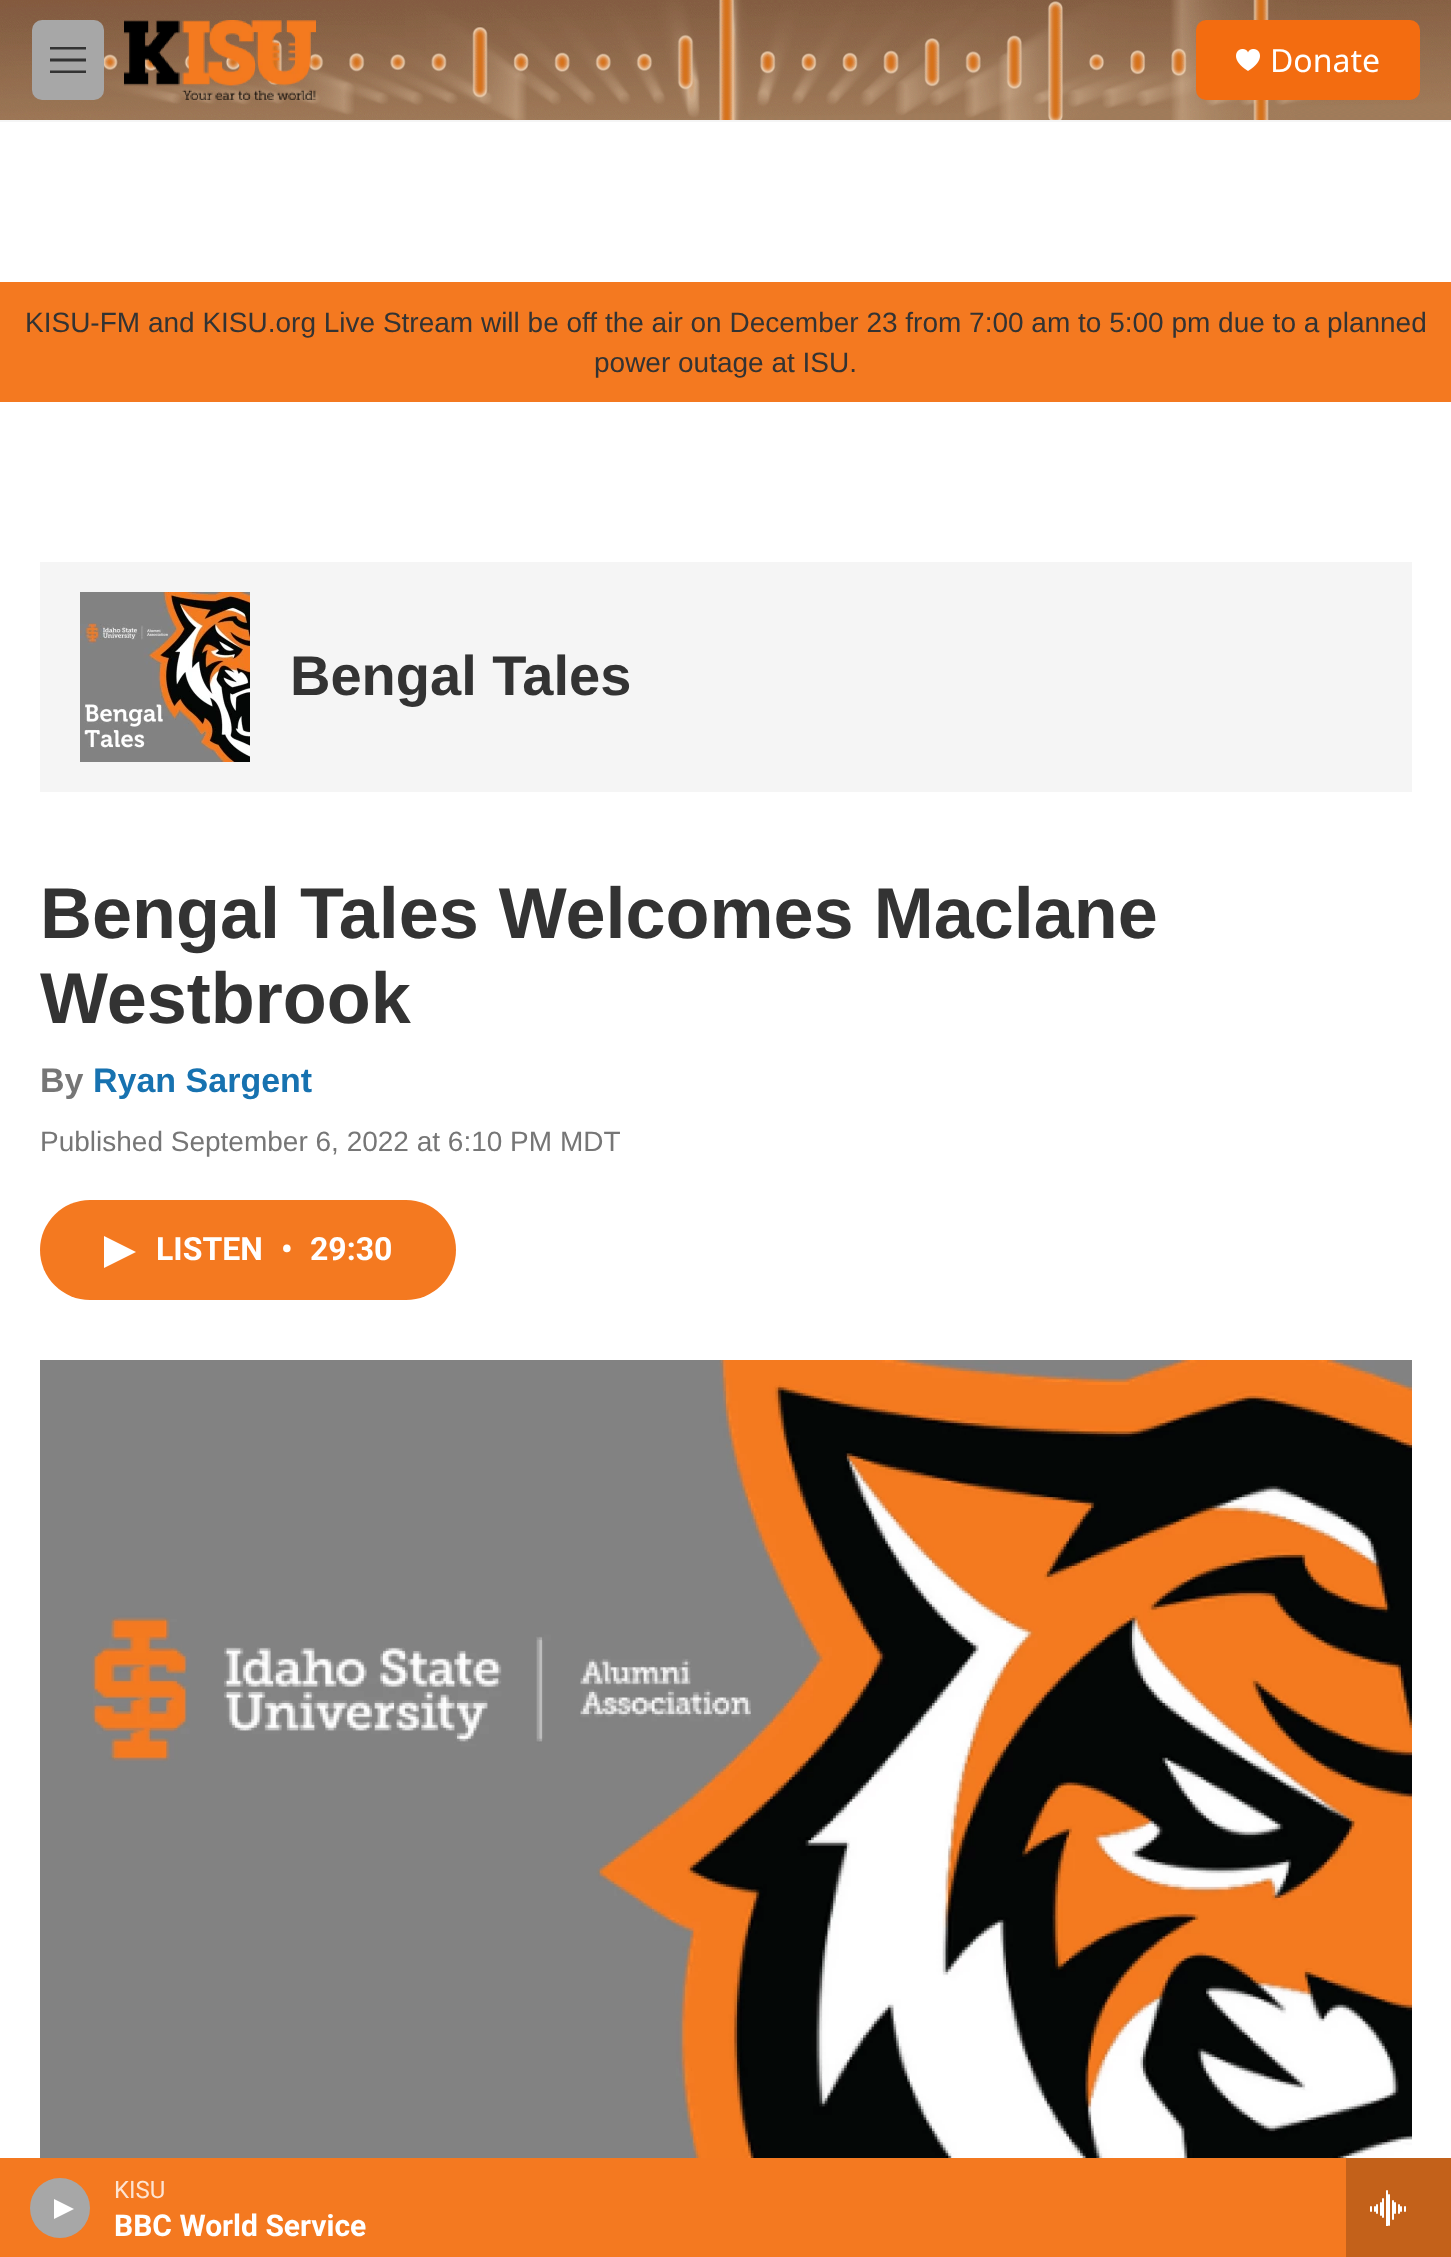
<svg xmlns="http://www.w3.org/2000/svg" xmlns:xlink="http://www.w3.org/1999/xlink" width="1451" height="2257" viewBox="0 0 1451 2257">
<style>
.cls-1{font:32px Noto Sans;fill:#ffffff}
.cls-2{font:24px Roboto;fill:#fde4d2}
.cls-3{font:bold 30px Roboto;fill:#ffffff}
.cls-4{font:28px Liberation Sans;fill:#333333}
.cls-5{font:bold 56px Liberation Sans;fill:#333333}
.cls-6{font:bold 72px Liberation Sans;fill:#333333}
.cls-7{font:bold 34px Liberation Sans;fill:#767676}
.cls-8{font:bold 34px Liberation Sans;fill:#1772b0}
.cls-9{font:28px Liberation Sans;fill:#767676}
.cls-10{font:bold 32px Roboto;fill:#ffffff}
</style>
<rect width="100%" height="100%" fill="#ffffff"/>
<rect fill="#f5f5f5" x="0" y="120" width="1451" height="2"/>
<image xlink:href="image0.png" x="0" y="0" width="1451" height="120"/>
<rect fill="#a7a7a7" x="32" y="20" width="72" height="80" rx="10"/>
<path fill="#333333" fill-rule="evenodd" d="M50 61.5V58.5H86V61.5ZM50 49.5V47H86V49.5ZM50 73V70.5H86V73Z"/>
<image xlink:href="image1.png" x="124" y="20" width="192" height="80"/>
<rect fill="#f36c10" x="1196" y="20" width="224" height="80" rx="10"/>
<image xlink:href="image2.png" x="1236" y="49" width="24" height="22"/>
<rect fill="#f47920" x="0" y="2158" width="1346" height="99"/>
<circle fill="#a7a7a7" cx="60" cy="2208" r="30"/>
<path fill="#ffffff" d="M54 2199L74 2209L54 2219Z"/>
<rect fill="#c3611a" x="1346" y="2158" width="105" height="99"/>
<image xlink:href="image3.png" x="1370" y="2190" width="36" height="36"/>
<rect fill="#f47920" x="0" y="282" width="1451" height="120"/>
<rect fill="#f5f5f5" x="40" y="562" width="1372" height="230"/>
<image xlink:href="image4.png" x="80" y="592" width="170" height="170"/>
<rect fill="#f47920" x="40" y="1200" width="416" height="100" rx="50"/>
<path fill="#ffffff" d="M104 1236L136 1252L104 1268Z"/>
<image xlink:href="image5.png" x="40" y="1360" width="1372" height="798"/>
<text class="cls-1" x="1270" y="72">Donate</text>
<text class="cls-2" x="114" y="2198">KISU</text>
<text class="cls-3" x="114" y="2236">BBC World Service</text>
<text class="cls-4" x="25" y="332">KISU-FM and KISU.org Live Stream will be off the air on December 23 from 7:00 am to 5:00 pm due to a planned</text>
<text class="cls-4" x="594" y="372">power outage at ISU.</text>
<text class="cls-5" x="290" y="695">Bengal Tales</text>
<text class="cls-6"><tspan x="40" y="938">Bengal Tales Welcomes Maclane</tspan><tspan x="40" y="1023">Westbrook</tspan></text>
<text class="cls-7" x="40" y="1092">By</text>
<text class="cls-8" x="93" y="1092">Ryan Sargent</text>
<text class="cls-9" x="40" y="1151">Published September 6, 2022 at 6:10 PM MDT</text>
<text class="cls-10" x="156" y="1260">LISTEN</text>
<text class="cls-10" x="281" y="1260">•</text>
<text class="cls-10" x="310" y="1260">29:30</text>
</svg>
